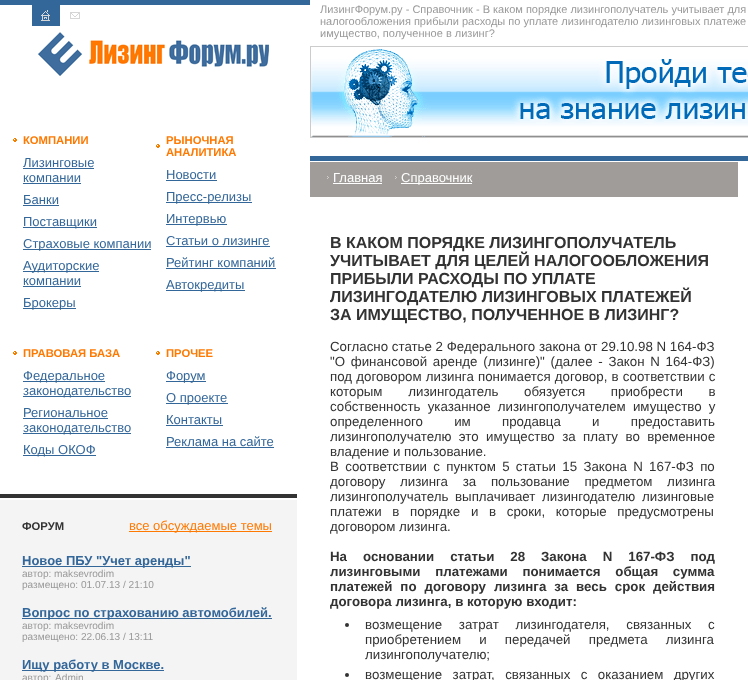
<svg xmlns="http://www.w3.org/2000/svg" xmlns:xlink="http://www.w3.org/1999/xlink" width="748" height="680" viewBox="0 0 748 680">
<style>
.cls-1{font:bold 11.25px Liberation Sans;fill:#ff7900}
.cls-2{font:13px Liberation Sans;fill:#336699}
.cls-3{font:bold 11.25px Liberation Sans;fill:#333333}
.cls-4{font:13px Liberation Sans;fill:#ff7900}
.cls-5{font:bold 13px Liberation Sans;fill:#336699}
.cls-6{font:10.1px Liberation Sans;fill:#999999}
.cls-7{font:11px Liberation Sans;fill:#999999}
.cls-8{font:13px Liberation Sans;fill:#ffffff}
.cls-9{font:bold 16px Liberation Sans;fill:#333333}
.cls-10{font:13.3px Liberation Sans;fill:#333333}
.cls-11{font:bold 13.3px Liberation Sans;fill:#333333}
</style>
<rect width="100%" height="100%" fill="#ffffff"/>
<rect fill="#336699" x="0" y="0" width="310" height="5"/>
<rect fill="#336699" x="32" y="5" width="28" height="21"/>
<image xlink:href="image0.png" x="41" y="10" width="9" height="11"/>
<image xlink:href="image1.png" x="70" y="12" width="10" height="7"/>
<image xlink:href="image2.png" x="38" y="32" width="231" height="44"/>
<image xlink:href="image3.png" x="13" y="138" width="4" height="4"/>
<rect fill="#336699" x="23" y="168" width="71" height="1"/>
<rect fill="#336699" x="23" y="183" width="58" height="1"/>
<rect fill="#336699" x="23" y="205" width="36" height="1"/>
<rect fill="#336699" x="23" y="227" width="74" height="1"/>
<rect fill="#336699" x="23" y="249" width="128" height="1"/>
<rect fill="#336699" x="23" y="271" width="76" height="1"/>
<rect fill="#336699" x="23" y="286" width="58" height="1"/>
<rect fill="#336699" x="23" y="308" width="53" height="1"/>
<image xlink:href="image3.png" x="156" y="144" width="4" height="4"/>
<rect fill="#336699" x="166" y="180" width="51" height="1"/>
<rect fill="#336699" x="166" y="202" width="86" height="1"/>
<rect fill="#336699" x="166" y="224" width="61" height="1"/>
<rect fill="#336699" x="166" y="246" width="104" height="1"/>
<rect fill="#336699" x="166" y="268" width="110" height="1"/>
<rect fill="#336699" x="166" y="290" width="79" height="1"/>
<image xlink:href="image3.png" x="13" y="351" width="4" height="4"/>
<rect fill="#336699" x="23" y="381" width="82" height="1"/>
<rect fill="#336699" x="23" y="396" width="108" height="1"/>
<rect fill="#336699" x="23" y="418" width="85" height="1"/>
<rect fill="#336699" x="23" y="433" width="108" height="1"/>
<rect fill="#336699" x="23" y="455" width="73" height="1"/>
<image xlink:href="image3.png" x="156" y="351" width="4" height="4"/>
<rect fill="#336699" x="166" y="381" width="40" height="1"/>
<rect fill="#336699" x="166" y="403" width="62" height="1"/>
<rect fill="#336699" x="166" y="425" width="57" height="1"/>
<rect fill="#336699" x="166" y="447" width="108" height="1"/>
<rect fill="#f4f4f4" x="0" y="500" width="297" height="180"/>
<rect fill="#333333" x="0" y="494" width="297" height="4"/>
<rect fill="#ff7900" x="129" y="531" width="143" height="1"/>
<rect fill="#336699" x="22" y="566" width="169" height="1"/>
<rect fill="#336699" x="22" y="618" width="250" height="1"/>
<rect fill="#336699" x="22" y="670" width="142" height="1"/>
<rect fill="none" stroke="#cccccc" x="310.5" y="46.5" width="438" height="91"/>
<image xlink:href="image4.png" x="311" y="47" width="437" height="90"/>
<rect fill="#336699" x="310" y="156" width="438" height="5"/>
<rect fill="#9f9c99" x="310" y="162" width="428" height="35"/>
<image xlink:href="image5.png" x="327" y="176" width="2" height="3"/>
<rect fill="#ffffff" x="333" y="183" width="49" height="1"/>
<image xlink:href="image5.png" x="395" y="176" width="2" height="3"/>
<rect fill="#ffffff" x="401" y="183" width="71" height="1"/>
<circle fill="#333333" cx="347" cy="625" r="2"/>
<circle fill="#333333" cx="347" cy="675" r="2"/>
<text class="cls-1" x="23" y="144">КОМПАНИИ</text>
<text class="cls-2"><tspan x="23" y="167">Лизинговые</tspan><tspan x="23" y="182">компании</tspan><tspan x="23" y="204">Банки</tspan><tspan x="23" y="226">Поставщики</tspan><tspan x="23" y="248">Страховые компании</tspan><tspan x="23" y="270">Аудиторские</tspan><tspan x="23" y="285">компании</tspan><tspan x="23" y="307">Брокеры</tspan></text>
<text class="cls-1"><tspan x="166" y="144">РЫНОЧНАЯ</tspan><tspan x="166" y="156">АНАЛИТИКА</tspan></text>
<text class="cls-2"><tspan x="166" y="179">Новости</tspan><tspan x="166" y="201">Пресс-релизы</tspan><tspan x="166" y="223">Интервью</tspan><tspan x="166" y="245">Статьи о лизинге</tspan><tspan x="166" y="267">Рейтинг компаний</tspan><tspan x="166" y="289">Автокредиты</tspan></text>
<text class="cls-1" x="23" y="357">ПРАВОВАЯ БАЗА</text>
<text class="cls-2"><tspan x="23" y="380">Федеральное</tspan><tspan x="23" y="395">законодательство</tspan><tspan x="23" y="417">Региональное</tspan><tspan x="23" y="432">законодательство</tspan><tspan x="23" y="454">Коды ОКОФ</tspan></text>
<text class="cls-1" x="166" y="357">ПРОЧЕЕ</text>
<text class="cls-2"><tspan x="166" y="380">Форум</tspan><tspan x="166" y="402">О проекте</tspan><tspan x="166" y="424">Контакты</tspan><tspan x="166" y="446">Реклама на сайте</tspan></text>
<text class="cls-3" x="22" y="530">ФОРУМ</text>
<text class="cls-4" x="129" y="530">все обсуждаемые темы</text>
<text class="cls-5" x="22" y="565">Новое ПБУ "Учет аренды"</text>
<text class="cls-6"><tspan x="22" y="577">автор: maksevrodim</tspan><tspan x="22" y="588">размещено: 01.07.13 / 21:10</tspan></text>
<text class="cls-5" x="22" y="617">Вопрос по страхованию автомобилей.</text>
<text class="cls-6"><tspan x="22" y="629">автор: maksevrodim</tspan><tspan x="22" y="640">размещено: 22.06.13 / 13:11</tspan></text>
<text class="cls-5" x="22" y="669">Ищу работу в Москве.</text>
<text class="cls-6" x="22" y="681" word-spacing="1">автор: Admin</text>
<text class="cls-7"><tspan x="320" y="13">ЛизингФорум.ру - Справочник - В каком порядке лизингополучатель учитывает для</tspan><tspan x="320" y="25">налогообложения прибыли расходы по уплате лизингодателю лизинговых платеже</tspan><tspan x="320" y="37">имущество, полученное в лизинг?</tspan></text>
<text class="cls-8" x="333" y="182">Главная</text>
<text class="cls-8" x="401" y="182">Справочник</text>
<text class="cls-9"><tspan x="330" y="248">В КАКОМ ПОРЯДКЕ ЛИЗИНГОПОЛУЧАТЕЛЬ</tspan><tspan x="330" y="266">УЧИТЫВАЕТ ДЛЯ ЦЕЛЕЙ НАЛОГООБЛОЖЕНИЯ</tspan><tspan x="330" y="284">ПРИБЫЛИ РАСХОДЫ ПО УПЛАТЕ</tspan><tspan x="330" y="302">ЛИЗИНГОДАТЕЛЮ ЛИЗИНГОВЫХ ПЛАТЕЖЕЙ</tspan><tspan x="330" y="320">ЗА ИМУЩЕСТВО, ПОЛУЧЕННОЕ В ЛИЗИНГ?</tspan></text>
<text class="cls-10"><tspan x="330" y="351">Согласно статье 2 Федерального закона от 29.10.98 N 164-ФЗ</tspan><tspan x="330" y="366" word-spacing="2">"О финансовой аренде (лизинге)" (далее - Закон N 164-ФЗ)</tspan><tspan x="330" y="381" word-spacing="0.5">под договором лизинга понимается договор, в соответствии с</tspan><tspan x="330" y="396" word-spacing="22">которым лизингодатель обязуется приобрести в</tspan><tspan x="330" y="411" word-spacing="3.5">собственность указанное лизингополучателем имущество у</tspan><tspan x="330" y="426" word-spacing="27.5">определенного им продавца и предоставить</tspan><tspan x="330" y="441" word-spacing="3.75">лизингополучателю это имущество за плату во временное</tspan><tspan x="330" y="456">владение и пользование.</tspan><tspan x="330" y="471" word-spacing="2.6">В соответствии с пунктом 5 статьи 15 Закона N 167-ФЗ по</tspan><tspan x="330" y="486" word-spacing="11">договору лизинга за пользование предметом лизинга</tspan><tspan x="330" y="501" word-spacing="3">лизингополучатель выплачивает лизингодателю лизинговые</tspan><tspan x="330" y="516" word-spacing="7">платежи в порядке и в сроки, которые предусмотрены</tspan><tspan x="330" y="531">договором лизинга.</tspan></text>
<text class="cls-11"><tspan x="330" y="561" word-spacing="12.25">На основании статьи 28 Закона N 167-ФЗ под</tspan><tspan x="330" y="576" word-spacing="11">лизинговыми платежами понимается общая сумма</tspan><tspan x="330" y="591" word-spacing="4.25">платежей по договору лизинга за весь срок действия</tspan><tspan x="330" y="606">договора лизинга, в которую входит:</tspan></text>
<text class="cls-10"><tspan x="365" y="629" word-spacing="13">возмещение затрат лизингодателя, связанных с</tspan><tspan x="365" y="644" word-spacing="14.5">приобретением и передачей предмета лизинга</tspan><tspan x="365" y="659">лизингополучателю;</tspan><tspan x="365" y="679" word-spacing="6.75">возмещение затрат, связанных с оказанием других</tspan></text>
</svg>
